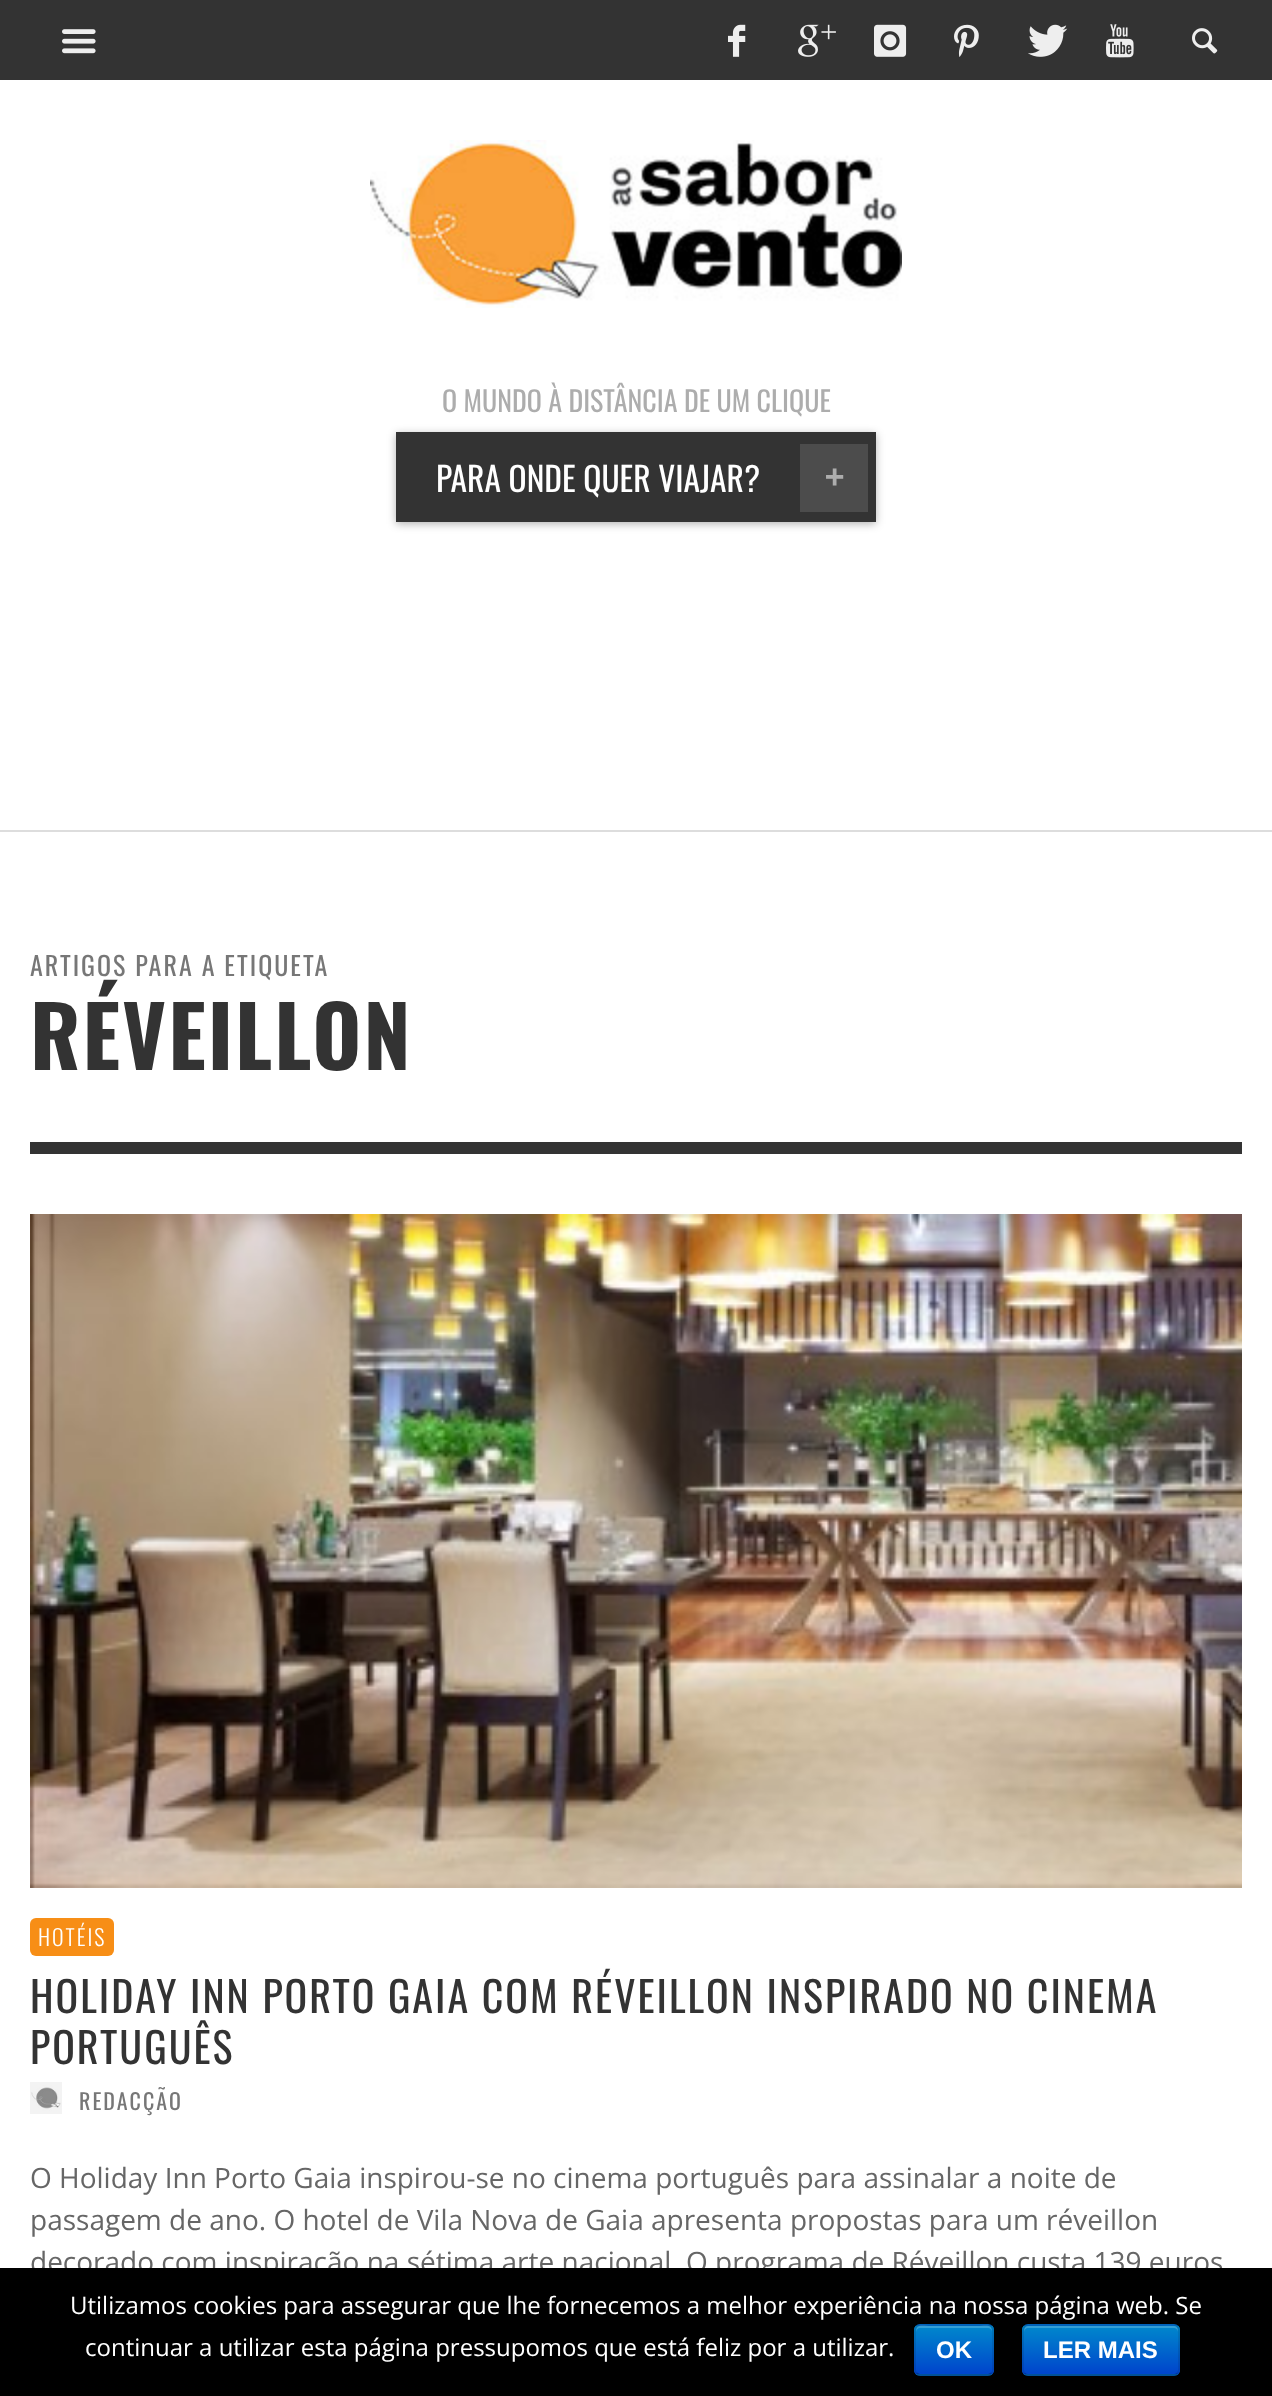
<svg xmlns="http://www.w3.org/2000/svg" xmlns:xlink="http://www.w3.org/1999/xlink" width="1272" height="2396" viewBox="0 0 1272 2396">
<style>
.cls-1{font:28px Oswald;fill:#adadad}
.cls-2{font:33.5px Oswald;fill:#ffffff}
.cls-3{font:bold 32px DejaVu Sans Mono;fill:#adadad}
.cls-4{font:26px Oswald;letter-spacing:2px;fill:#777777}
.cls-5{font:bold 84px Oswald;letter-spacing:2px;fill:#333333}
.cls-6{font:300 22px Oswald;letter-spacing:2px;fill:#ffffff}
.cls-7{font:42px Oswald;letter-spacing:2px;fill:#333333}
.cls-8{font:22px Oswald;letter-spacing:2px;fill:#777777}
.cls-9{font:28px Open Sans;fill:#666666}
.cls-10{font:24px Open Sans;fill:#ffffff}
.cls-11{font:bold 24px Liberation Sans;fill:#ffffff}
</style>
<defs>
<clipPath id="clip1"><rect x="914" y="2324" width="80" height="52" rx="6"/></clipPath>
<linearGradient id="g1" gradientUnits="userSpaceOnUse" x1="954" y1="2326" x2="954" y2="2374"><stop offset="0" stop-color="#0088cc"/><stop offset="1" stop-color="#0044cc"/></linearGradient>
<clipPath id="clip2"><rect x="1022" y="2324" width="158" height="52" rx="6"/></clipPath>
<linearGradient id="g2" gradientUnits="userSpaceOnUse" x1="1101" y1="2326" x2="1101" y2="2374"><stop offset="0" stop-color="#0088cc"/><stop offset="1" stop-color="#0044cc"/></linearGradient>
</defs>
<rect width="100%" height="100%" fill="#ffffff"/>
<rect fill="#333333" x="0" y="0" width="1272" height="80"/>
<image xlink:href="image0.png" x="62" y="29" width="34" height="25"/>
<image xlink:href="image1.png" x="728" y="24" width="18" height="33"/>
<image xlink:href="image2.png" x="798" y="24" width="38" height="33"/>
<image xlink:href="image3.png" x="874" y="24" width="33" height="33"/>
<image xlink:href="image4.png" x="954" y="24" width="25" height="33"/>
<image xlink:href="image5.png" x="1028" y="24" width="40" height="33"/>
<image xlink:href="image6.png" x="1106" y="24" width="28" height="34"/>
<image xlink:href="image7.png" x="1192" y="28" width="26" height="26"/>
<rect fill="#dddddd" x="0" y="830" width="1272" height="2"/>
<image xlink:href="image8.png" x="370" y="140" width="532" height="168"/>
<rect fill="#000000" fill-opacity="0.3" filter="blur(4px)" x="396" y="434" width="480" height="90"/>
<rect fill="#333333" x="396" y="432" width="480" height="90"/>
<rect fill="#4c4c4c" x="800" y="444" width="68" height="68"/>
<rect fill="#333333" x="30" y="1142" width="1212" height="12"/>
<image xlink:href="image9.png" x="30" y="1214" width="1212" height="674"/>
<rect fill="#f78e16" x="30" y="1918" width="84" height="38" rx="6"/>
<image xlink:href="image10.png" x="30" y="2082" width="32" height="32"/>
<text class="cls-1" x="442" y="412">O MUNDO À DISTÂNCIA DE UM CLIQUE</text>
<text class="cls-2" x="436" y="492">PARA ONDE QUER VIAJAR?</text>
<text class="cls-3" x="825" y="487">+</text>
<text class="cls-4" x="30" y="976">ARTIGOS PARA A ETIQUETA</text>
<text class="cls-5" x="30" y="1070">RÉVEILLON</text>
<text class="cls-6" x="38" y="1946">HOTÉIS</text>
<text class="cls-7"><tspan x="30" y="2013">HOLIDAY INN PORTO GAIA COM RÉVEILLON INSPIRADO NO CINEMA</tspan><tspan x="30" y="2064">PORTUGUÊS</tspan></text>
<text class="cls-8" x="79" y="2110">REDACÇÃO</text>
<text class="cls-9"><tspan x="30" y="2188">O Holiday Inn Porto Gaia inspirou-se no cinema português para assinalar a noite de</tspan><tspan x="30" y="2230">passagem de ano. O hotel de Vila Nova de Gaia apresenta propostas para um réveillon</tspan><tspan x="30" y="2272">decorado com inspiração na sétima arte nacional. O programa de Réveillon custa 139 euros</tspan></text>
<rect fill="#000000" x="0" y="2268" width="1272" height="128"/>
<text class="cls-10" x="70" y="2314">Utilizamos cookies para assegurar que lhe fornecemos a melhor experiência na nossa página web. Se</text>
<text class="cls-10" x="85" y="2356">continuar a utilizar esta página pressupomos que está feliz por a utilizar.</text>
<rect fill="#006dcc" x="914" y="2324" width="80" height="52" rx="6"/>
<g clip-path="url(#clip1)">
<rect fill="url(#g1)" x="914" y="2326" width="80" height="48"/>
</g>
<path fill="#ffffff" fill-opacity="0.2" d="M920 2328H988C990 2328 992 2330 992 2332C992 2323 985 2326 977 2326H931C923 2326 916 2323 916 2332C916 2330 918 2328 920 2328Z"/>
<path fill="none" stroke="#000000" stroke-opacity="0.25" stroke-width="2" d="M991.5 2373.5L988.5 2375H919.5L916.5 2373.5"/>
<path fill="none" stroke="#000000" stroke-opacity="0.1" stroke-width="2" d="M916.5 2373.5C915.5 2372.5 915 2371.5 915 2370V2330C915 2328.5 915.5 2327.5 916.5 2326.5C917.5 2325.5 918.5 2325 920 2325H988C989.5 2325 990.5 2325.5 991.5 2326.5C992.5 2327.5 993 2328.5 993 2330V2370C993 2371.5 992.5 2372.5 991.5 2373.5"/>
<text class="cls-11" x="936" y="2358">OK</text>
<rect fill="#006dcc" x="1022" y="2324" width="158" height="52" rx="6"/>
<g clip-path="url(#clip2)">
<rect fill="url(#g2)" x="1022" y="2326" width="158" height="48"/>
</g>
<path fill="#ffffff" fill-opacity="0.2" d="M1028 2328H1174C1176 2328 1178 2330 1178 2332V2330C1178 2328 1176 2326 1174 2326H1028C1026 2326 1024 2328 1024 2330V2332C1024 2330 1026 2328 1028 2328Z"/>
<path fill="none" stroke="#000000" stroke-opacity="0.25" stroke-width="2" d="M1177.5 2373.5C1176.5 2374.5 1175.5 2375 1174 2375H1028C1026.5 2375 1025.5 2374.5 1024.5 2373.5"/>
<path fill="none" stroke="#000000" stroke-opacity="0.1" stroke-width="2" d="M1024.5 2373.5C1022 2371 1023 2366 1023 2363.5V2336.5C1023 2333 1022 2325 1028 2325H1149.5C1183.5 2325 1179 2319 1179 2350V2363.5C1179 2366 1180 2371 1177.5 2373.5"/>
<text class="cls-11" x="1043" y="2358">LER MAIS</text>
</svg>
